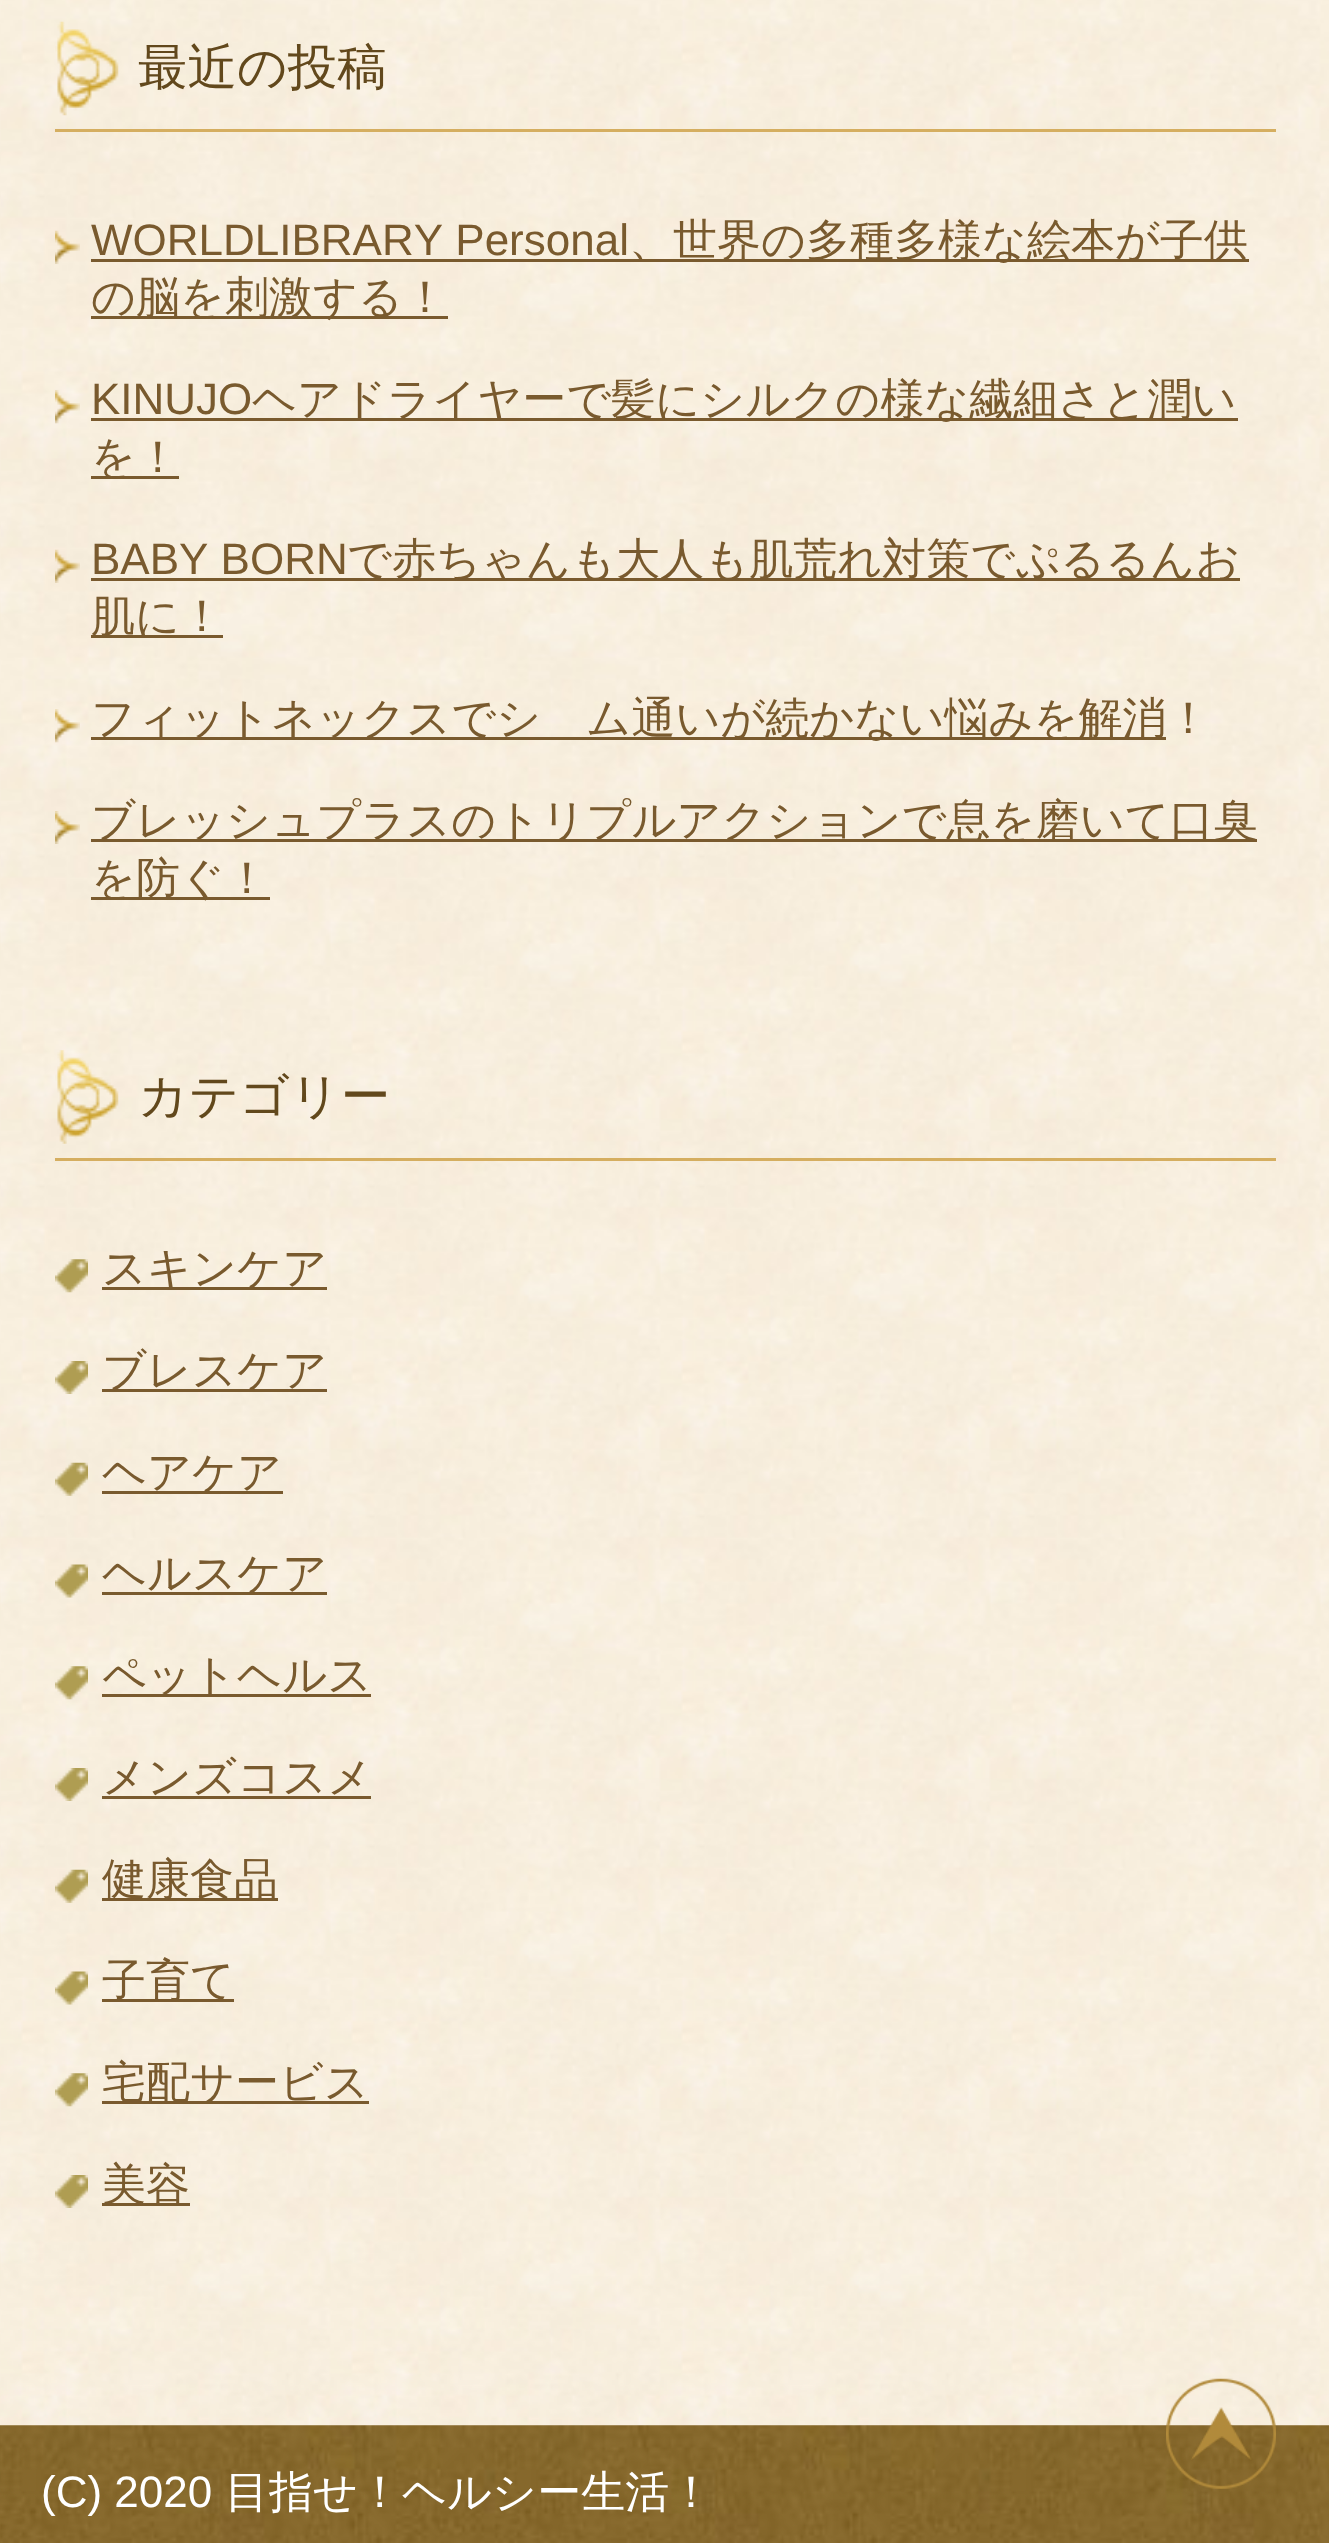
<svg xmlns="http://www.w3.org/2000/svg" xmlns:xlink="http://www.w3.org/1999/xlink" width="1329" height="2543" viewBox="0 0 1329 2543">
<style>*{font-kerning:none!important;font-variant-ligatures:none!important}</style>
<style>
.cls-1{font:500 49.5px WenQuanYi Zen Hei;fill:#62481c}
.cls-2{font:44px Liberation Sans;fill:#795a2e}
.cls-3{font:500 44px WenQuanYi Zen Hei;fill:#795a2e}
.cls-4{font:44px Liberation Sans;fill:#ffffff}
.cls-5{font:500 44px WenQuanYi Zen Hei;fill:#ffffff}
</style>
<rect width="100%" height="100%" fill="#ffffff"/>
<image xlink:href="image0.png" x="0" y="0" width="1329" height="2426"/>
<image xlink:href="image1.png" x="55" y="21" width="64" height="95"/>
<rect fill="#d5ae60" x="55" y="129" width="1221" height="3"/>
<image xlink:href="image2.png" x="55" y="230" width="25" height="34"/>
<rect fill="#795a2e" x="91" y="259" width="1158" height="3"/>
<rect fill="#795a2e" x="91" y="316" width="357" height="3"/>
<image xlink:href="image3.png" x="55" y="390" width="25" height="34"/>
<rect fill="#795a2e" x="91" y="418" width="1147" height="3"/>
<rect fill="#795a2e" x="91" y="476" width="88" height="3"/>
<image xlink:href="image4.png" x="55" y="549" width="25" height="34"/>
<rect fill="#795a2e" x="91" y="578" width="1149" height="3"/>
<rect fill="#795a2e" x="91" y="635" width="132" height="3"/>
<image xlink:href="image5.png" x="55" y="709" width="25" height="34"/>
<rect fill="#795a2e" x="91" y="737" width="1075" height="3"/>
<image xlink:href="image6.png" x="55" y="811" width="25" height="33"/>
<rect fill="#795a2e" x="91" y="839" width="1166" height="3"/>
<rect fill="#795a2e" x="91" y="897" width="179" height="3"/>
<image xlink:href="image7.png" x="55" y="1050" width="64" height="94"/>
<rect fill="#d5ae60" x="55" y="1158" width="1221" height="3"/>
<image xlink:href="image8.png" x="55" y="1259" width="33" height="34"/>
<rect fill="#795a2e" x="102" y="1287" width="225" height="3"/>
<image xlink:href="image9.png" x="55" y="1361" width="33" height="33"/>
<rect fill="#795a2e" x="102" y="1389" width="225" height="3"/>
<image xlink:href="image10.png" x="55" y="1462" width="33" height="34"/>
<rect fill="#795a2e" x="102" y="1491" width="181" height="3"/>
<image xlink:href="image11.png" x="55" y="1564" width="33" height="34"/>
<rect fill="#795a2e" x="102" y="1592" width="225" height="3"/>
<image xlink:href="image12.png" x="55" y="1666" width="33" height="34"/>
<rect fill="#795a2e" x="102" y="1694" width="269" height="3"/>
<image xlink:href="image13.png" x="55" y="1768" width="33" height="33"/>
<rect fill="#795a2e" x="102" y="1796" width="269" height="3"/>
<image xlink:href="image14.png" x="55" y="1869" width="33" height="34"/>
<rect fill="#795a2e" x="102" y="1898" width="176" height="3"/>
<image xlink:href="image15.png" x="55" y="1971" width="33" height="34"/>
<rect fill="#795a2e" x="102" y="1999" width="132" height="3"/>
<image xlink:href="image16.png" x="55" y="2073" width="33" height="34"/>
<rect fill="#795a2e" x="102" y="2101" width="267" height="3"/>
<image xlink:href="image17.png" x="55" y="2175" width="33" height="33"/>
<rect fill="#795a2e" x="102" y="2203" width="88" height="3"/>
<image xlink:href="image18.png" x="79" y="2425" width="1250" height="1"/>
<image xlink:href="image19.png" x="0" y="2425" width="1329" height="118"/>
<image xlink:href="image20.png" x="1166" y="2378" width="110" height="111"/>
<text class="cls-1" x="138" y="84">最近の投稿</text>
<text class="cls-2" x="91" y="255">WORLDLIBRARY Personal</text>
<text class="cls-3" x="629" y="255">、世界の多種多様な絵本が子供</text>
<text class="cls-3" x="91" y="312">の脳を刺激する！</text>
<text class="cls-2" x="91" y="414">KINUJO</text>
<text class="cls-3" x="252" y="414">ヘアドライヤーで髪にシルクの様な繊細さと潤い</text>
<text class="cls-3" x="91" y="472">を！</text>
<text class="cls-2" x="91" y="574">BABY BORN</text>
<text class="cls-3" x="347" y="574">で赤ちゃんも大人も肌荒れ対策でぷるるんお</text>
<text class="cls-3" x="91" y="631">肌に！</text>
<text class="cls-3" x="91" y="733">フィットネックスでジム通いが続かない悩みを解消！</text>
<text class="cls-3"><tspan x="91" y="835">ブレッシュプラスのトリプルアクションで息を磨いて口臭</tspan><tspan x="91" y="893">を防ぐ！</tspan></text>
<text class="cls-1" x="138" y="1113">カテゴリー</text>
<text class="cls-3" x="102" y="1283">スキンケア</text>
<text class="cls-3" x="102" y="1385">ブレスケア</text>
<text class="cls-3" x="102" y="1487">ヘアケア</text>
<text class="cls-3" x="102" y="1588">ヘルスケア</text>
<text class="cls-3" x="102" y="1690">ペットヘルス</text>
<text class="cls-3" x="102" y="1792">メンズコスメ</text>
<text class="cls-3" x="102" y="1894">健康食品</text>
<text class="cls-3" x="102" y="1995">子育て</text>
<text class="cls-3" x="102" y="2097">宅配サービス</text>
<text class="cls-3" x="102" y="2199">美容</text>
<text class="cls-4" x="41" y="2507">(C) 2020</text>
<text class="cls-5" x="225" y="2507">目指せ！ヘルシー生活！</text>
</svg>
